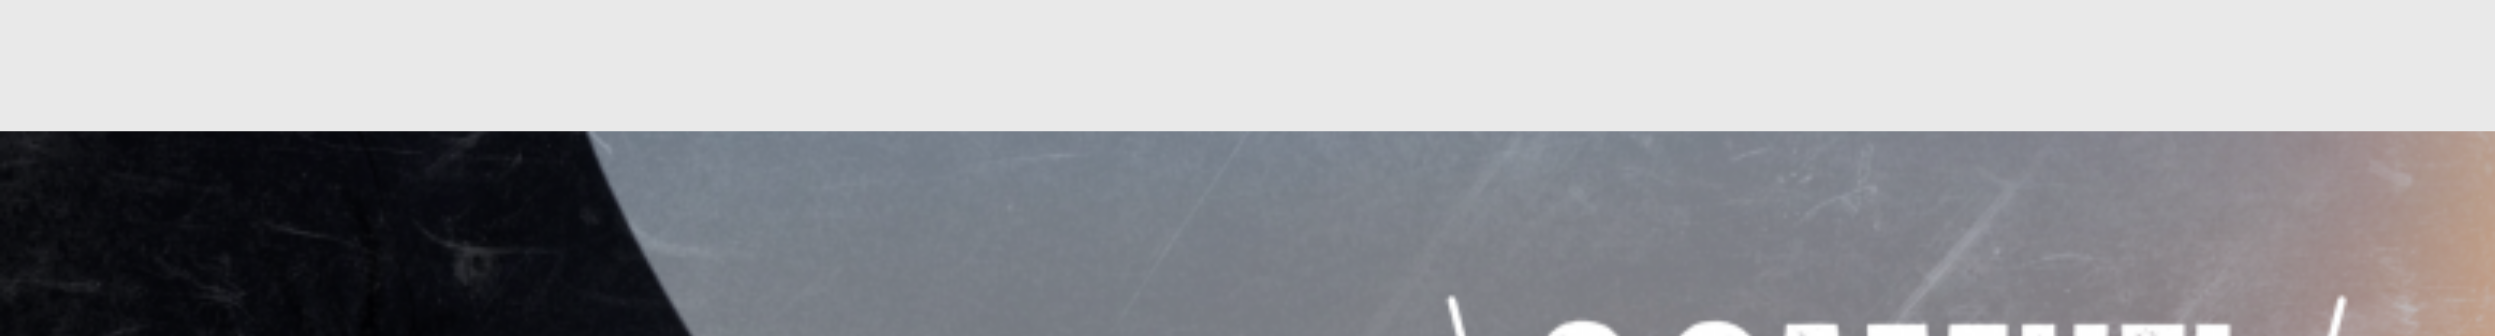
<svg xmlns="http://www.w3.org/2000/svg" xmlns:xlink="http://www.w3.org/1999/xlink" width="2495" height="336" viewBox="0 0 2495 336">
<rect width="100%" height="100%" fill="#e9e9e9"/>
<image xlink:href="image0.png" x="0" y="131" width="2495" height="205"/>
</svg>
